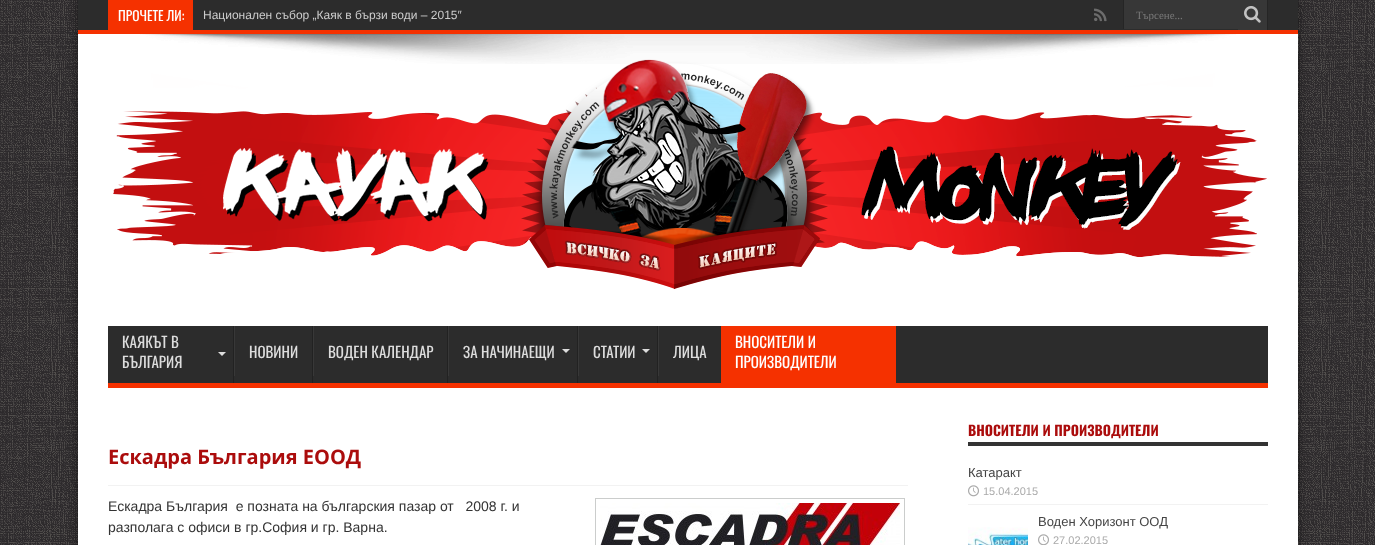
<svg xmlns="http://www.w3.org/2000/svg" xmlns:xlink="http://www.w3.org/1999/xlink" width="1375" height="545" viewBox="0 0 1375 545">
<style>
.cls-1{font:13.5px Oswald;fill:#ffffff}
.cls-2{font:12px Liberation Sans;fill:#cccccc}
.cls-3{font:11px Liberation Serif;fill:#787878}
.cls-4{font:15px Oswald;fill:#dddddd}
.cls-5{font:15px Oswald;fill:#ffffff}
.cls-6{font:bold 20px Open Sans;fill:#ab0c0c}
.cls-7{font:14px Liberation Sans;fill:#333333}
.cls-8{font:bold 14px Oswald;fill:#ab0c0c}
.cls-9{font:13px Liberation Sans;fill:#444444}
.cls-10{font:11px Liberation Sans;fill:#aaaaaa}
</style>
<defs>
<clipPath id="clip1"><rect x="1136" y="9" width="90" height="12"/></clipPath>
</defs>
<rect width="100%" height="100%" fill="#262326"/>
<image xlink:href="image0.png" x="0" y="0" width="1375" height="545"/>
<rect fill="#000000" fill-opacity="0.5" filter="blur(5px)" x="78" y="0" width="1220" height="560"/>
<rect fill="#ffffff" x="78" y="34" width="1220" height="511"/>
<rect fill="#2c2c2c" x="78" y="0" width="1220" height="30"/>
<rect fill="#f53100" x="78" y="30" width="1220" height="4"/>
<rect fill="#f53100" x="108" y="0" width="85" height="30"/>
<image xlink:href="image1.png" x="1094" y="8" width="13" height="14"/>
<rect fill="#373737" x="1124" y="0" width="114" height="29"/>
<rect fill="#252525" x="1123" y="0" width="1" height="29"/>
<rect fill="#373737" x="1238" y="0" width="29" height="30"/>
<rect fill="#252525" x="1267" y="0" width="1" height="30"/>
<image xlink:href="image2.png" x="1244" y="6" width="17" height="17"/>
<image xlink:href="image3.png" x="140" y="34" width="1096" height="30"/>
<image xlink:href="image4.png" x="113" y="59" width="1154" height="230"/>
<rect fill="#2c2c2c" x="108" y="326" width="1160" height="57"/>
<rect fill="#f53100" x="108" y="383" width="1160" height="5"/>
<path fill="#dddddd" d="M218 352H226L222 356Z"/>
<rect fill="#222222" x="233" y="326" width="1" height="57"/>
<rect fill="#383838" x="234" y="326" width="1" height="50"/>
<rect fill="#222222" x="312" y="326" width="1" height="57"/>
<rect fill="#383838" x="313" y="326" width="1" height="50"/>
<rect fill="#222222" x="447" y="326" width="1" height="57"/>
<rect fill="#383838" x="448" y="326" width="1" height="50"/>
<path fill="#dddddd" d="M562 349H570L566 353Z"/>
<rect fill="#222222" x="577" y="326" width="1" height="57"/>
<rect fill="#383838" x="578" y="326" width="1" height="50"/>
<path fill="#dddddd" d="M642 349H650L646 353Z"/>
<rect fill="#222222" x="657" y="326" width="1" height="57"/>
<rect fill="#383838" x="658" y="326" width="1" height="50"/>
<rect fill="#f53100" x="721" y="326" width="175" height="57"/>
<rect fill="#f2f2f2" x="108" y="485" width="800" height="1"/>
<rect fill="none" stroke="#cbcdcc" x="595.5" y="498.5" width="309" height="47"/>
<image xlink:href="image5.png" x="600" y="503" width="300" height="42"/>
<rect fill="#333333" x="968" y="442" width="300" height="4"/>
<rect fill="#f2f2f2" x="968" y="504" width="300" height="1"/>
<image xlink:href="image6.png" x="968" y="485" width="11" height="12"/>
<image xlink:href="image7.png" x="968" y="527" width="60" height="18"/>
<image xlink:href="image8.png" x="1038" y="534" width="11" height="11"/>
<text class="cls-1" x="118" y="21">ПРОЧЕТЕ ЛИ:</text>
<text class="cls-2" x="203" y="19">Национален събор „Каяк в бързи води – 2015″</text>
<g clip-path="url(#clip1)">
<text class="cls-3" x="1136" y="19">Търсене...</text>
</g>
<text class="cls-4"><tspan x="122" y="348">КАЯКЪТ В</tspan><tspan x="122" y="368">БЪЛГАРИЯ</tspan></text>
<text class="cls-4" x="249" y="358">НОВИНИ</text>
<text class="cls-4" x="328" y="358">ВОДЕН КАЛЕНДАР</text>
<text class="cls-4" x="463" y="358">ЗА НАЧИНАЕЩИ</text>
<text class="cls-4" x="593" y="358">СТАТИИ</text>
<text class="cls-4" x="673" y="358">ЛИЦА</text>
<text class="cls-5"><tspan x="735" y="348">ВНОСИТЕЛИ И</tspan><tspan x="735" y="368">ПРОИЗВОДИТЕЛИ</tspan></text>
<text class="cls-6" x="108" y="464">Ескадра България ЕООД</text>
<text class="cls-7" xml:space="preserve"><tspan x="108" y="511">Ескадра България  е позната на българския пазар от   2008 г. и</tspan><tspan x="108" y="532">разполага с офиси в гр.София и гр. Варна.</tspan></text>
<text class="cls-8" x="968" y="436">ВНОСИТЕЛИ И ПРОИЗВОДИТЕЛИ</text>
<text class="cls-9" x="968" y="477">Катаракт</text>
<text class="cls-10" x="983" y="495">15.04.2015</text>
<text class="cls-9" x="1038" y="526">Воден Хоризонт ООД</text>
<text class="cls-10" x="1053" y="544">27.02.2015</text>
</svg>
